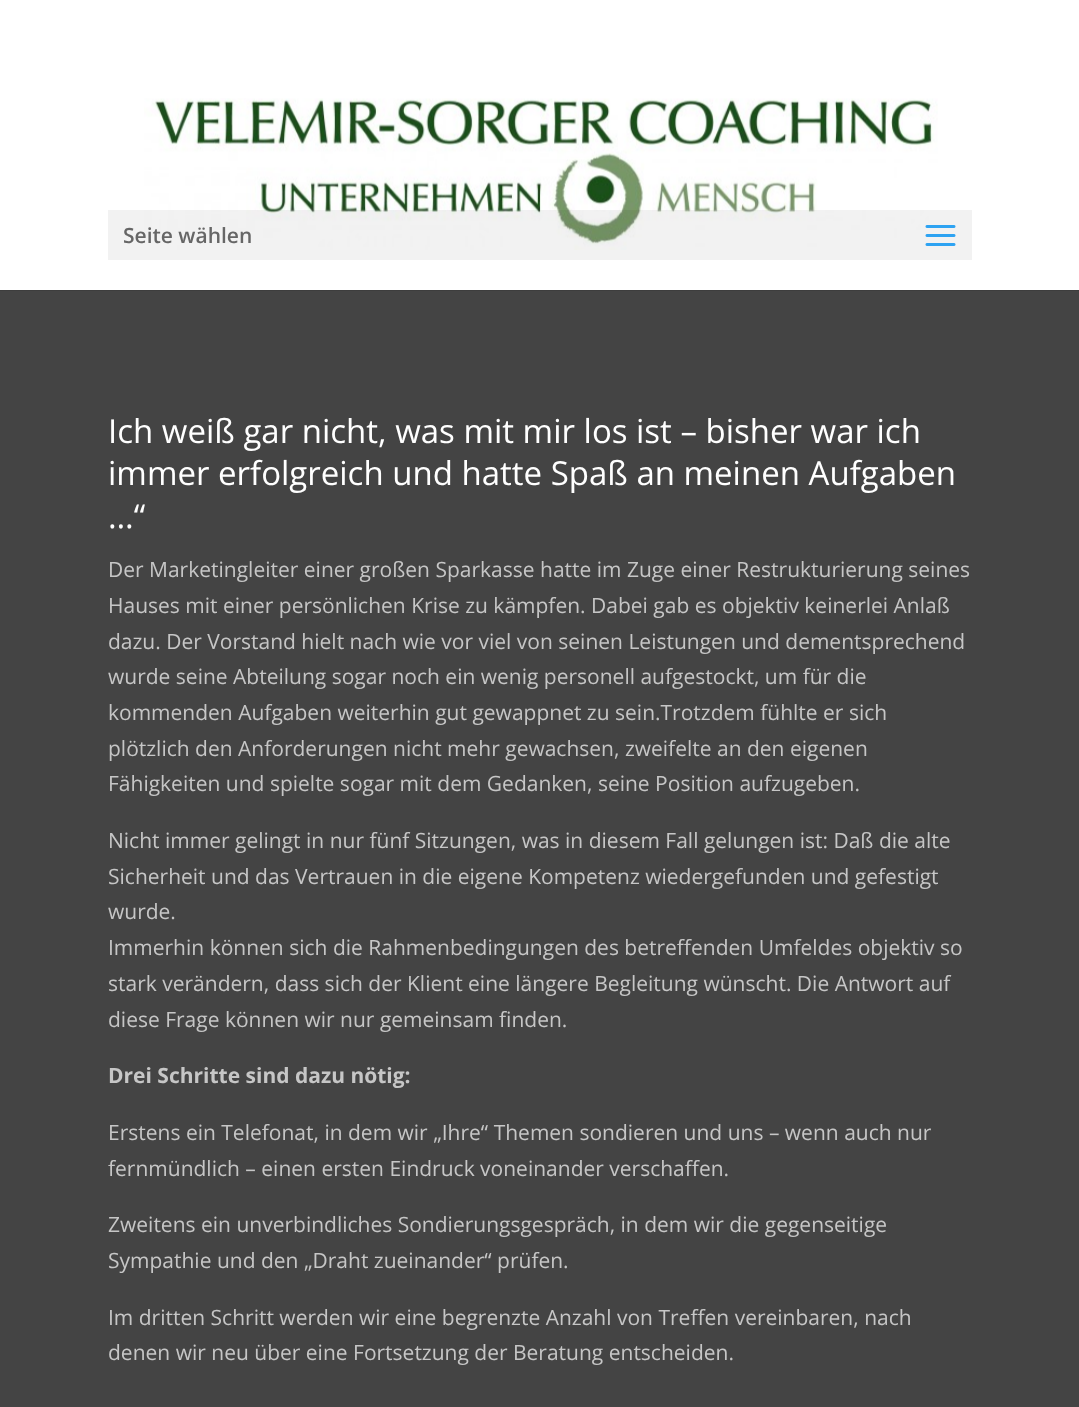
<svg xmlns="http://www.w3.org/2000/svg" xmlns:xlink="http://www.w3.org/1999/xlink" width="1079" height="1407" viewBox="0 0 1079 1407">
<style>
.cls-1{font:600 21px Open Sans;fill:#666666}
.cls-2{font:33px Open Sans;fill:#ffffff}
.cls-3{font:21px Open Sans;fill:#c6c6c6}
.cls-4{font:bold 21px Open Sans;fill:#c6c6c6}
</style>
<rect width="100%" height="100%" fill="#444444"/>
<rect fill="#3d3d3d" x="0" y="290" width="1079" height="1"/>
<rect fill="#ffffff" x="0" y="0" width="1079" height="290"/>
<image xlink:href="image0.png" x="144" y="98" width="794" height="152"/>
<rect fill="#000000" fill-opacity="0.05" x="108" y="210" width="864" height="50"/>
<image xlink:href="image1.png" x="925" y="225" width="31" height="21"/>
<text class="cls-1" x="123" y="243">Seite wählen</text>
<text class="cls-2"><tspan x="108" y="443">Ich weiß gar nicht, was mit mir los ist – bisher war ich</tspan><tspan x="108" y="485">immer erfolgreich und hatte Spaß an meinen Aufgaben</tspan><tspan x="108" y="528">…“</tspan></text>
<text class="cls-3"><tspan x="108" y="577">Der Marketingleiter einer großen Sparkasse hatte im Zuge einer Restrukturierung seines</tspan><tspan x="108" y="613">Hauses mit einer persönlichen Krise zu kämpfen. Dabei gab es objektiv keinerlei Anlaß</tspan><tspan x="108" y="649">dazu. Der Vorstand hielt nach wie vor viel von seinen Leistungen und dementsprechend</tspan><tspan x="108" y="684">wurde seine Abteilung sogar noch ein wenig personell aufgestockt, um für die</tspan><tspan x="108" y="720">kommenden Aufgaben weiterhin gut gewappnet zu sein.Trotzdem fühlte er sich</tspan><tspan x="108" y="756">plötzlich den Anforderungen nicht mehr gewachsen, zweifelte an den eigenen</tspan><tspan x="108" y="791">Fähigkeiten und spielte sogar mit dem Gedanken, seine Position aufzugeben.</tspan></text>
<text class="cls-3"><tspan x="108" y="848">Nicht immer gelingt in nur fünf Sitzungen, was in diesem Fall gelungen ist: Daß die alte</tspan><tspan x="108" y="884">Sicherheit und das Vertrauen in die eigene Kompetenz wiedergefunden und gefestigt</tspan><tspan x="108" y="919">wurde.</tspan><tspan x="108" y="955">Immerhin können sich die Rahmenbedingungen des betreffenden Umfeldes objektiv so</tspan><tspan x="108" y="991">stark verändern, dass sich der Klient eine längere Begleitung wünscht. Die Antwort auf</tspan><tspan x="108" y="1027">diese Frage können wir nur gemeinsam finden.</tspan></text>
<text class="cls-4" x="108" y="1083">Drei Schritte sind dazu nötig:</text>
<text class="cls-3"><tspan x="108" y="1140">Erstens ein Telefonat, in dem wir „Ihre“ Themen sondieren und uns – wenn auch nur</tspan><tspan x="108" y="1176">fernmündlich – einen ersten Eindruck voneinander verschaffen.</tspan></text>
<text class="cls-3"><tspan x="108" y="1232">Zweitens ein unverbindliches Sondierungsgespräch, in dem wir die gegenseitige</tspan><tspan x="108" y="1268">Sympathie und den „Draht zueinander“ prüfen.</tspan></text>
<text class="cls-3"><tspan x="108" y="1325">Im dritten Schritt werden wir eine begrenzte Anzahl von Treffen vereinbaren, nach</tspan><tspan x="108" y="1360">denen wir neu über eine Fortsetzung der Beratung entscheiden.</tspan></text>
</svg>
